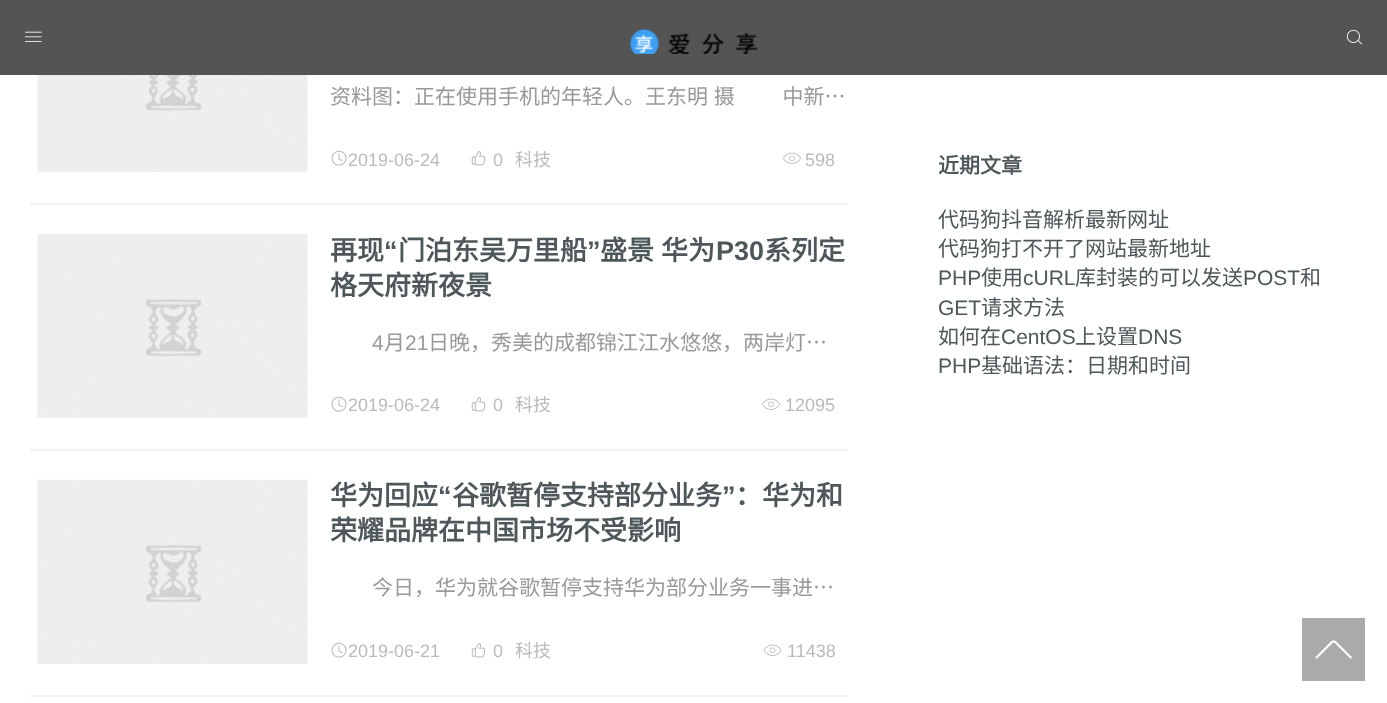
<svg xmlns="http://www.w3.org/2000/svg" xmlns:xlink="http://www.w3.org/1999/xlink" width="1387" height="703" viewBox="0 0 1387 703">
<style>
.cls-1{font:21px Noto Sans CJK SC;fill:#999999}
.cls-2{font:18px Liberation Sans;fill:#bbbbbb}
.cls-3{font:18px Noto Sans CJK SC;fill:#bbbbbb}
.cls-4{font:bold 27px Noto Sans CJK SC;fill:#4e585a}
.cls-5{font:bold 27px Liberation Sans;fill:#4e585a}
.cls-6{font:21px Liberation Sans;fill:#999999}
.cls-7{font:bold 21px Noto Sans CJK SC;fill:#4e585a}
.cls-8{font:21px Noto Sans CJK SC;fill:#4e585a}
.cls-9{font:21px Liberation Sans;fill:#4e585a}
</style>
<rect width="100%" height="100%" fill="#ffffff"/>
<rect fill="#545454" x="0" y="0" width="1387" height="75"/>
<image xlink:href="image0.png" x="25" y="31" width="17" height="11"/>
<image xlink:href="image1.png" x="629" y="29" width="129" height="25"/>
<image xlink:href="image2.png" x="1346" y="29" width="16" height="16"/>
<rect fill="#f2f2f2" x="30" y="203" width="818" height="2"/>
<image xlink:href="image3.png" x="37" y="75" width="271" height="97"/>
<image xlink:href="image4.png" x="331" y="150" width="16" height="16"/>
<image xlink:href="image5.png" x="471" y="151" width="15" height="15"/>
<image xlink:href="image6.png" x="783" y="152" width="18" height="12"/>
<rect fill="#f2f2f2" x="30" y="449" width="818" height="2"/>
<image xlink:href="image7.png" x="37" y="233" width="271" height="185"/>
<image xlink:href="image4.png" x="331" y="396" width="16" height="16"/>
<image xlink:href="image5.png" x="471" y="397" width="15" height="15"/>
<image xlink:href="image6.png" x="762" y="398" width="18" height="12"/>
<rect fill="#f2f2f2" x="30" y="695" width="818" height="2"/>
<image xlink:href="image7.png" x="37" y="479" width="271" height="185"/>
<image xlink:href="image4.png" x="331" y="642" width="16" height="16"/>
<image xlink:href="image5.png" x="471" y="643" width="15" height="15"/>
<image xlink:href="image8.png" x="763" y="644" width="19" height="12"/>
<rect fill="#aaaaaa" x="1302" y="618" width="63" height="63"/>
<image xlink:href="image9.png" x="1315" y="640" width="37" height="19"/>
<text class="cls-1" x="330" y="104" word-spacing="1">资料图：正在使用手机的年轻人。王东明 摄 　　中新…</text>
<text class="cls-2" x="348" y="166">2019-06-24</text>
<text class="cls-2" x="493" y="166">0</text>
<text class="cls-3" x="515" y="166">科技</text>
<text class="cls-2" x="805" y="166">598</text>
<text class="cls-4" x="330" y="260">再现</text>
<text class="cls-5" x="384" y="260">“</text>
<text class="cls-4" x="398" y="260">门泊东吴万里船</text>
<text class="cls-5" x="587" y="260">”</text>
<text class="cls-4" x="600" y="260" word-spacing="1">盛景 华为</text>
<text class="cls-5" x="716" y="260">P30</text>
<text class="cls-4" x="764" y="260">系列定</text>
<text class="cls-4" x="330" y="295">格天府新夜景</text>
<text class="cls-6" x="372" y="350">4</text>
<text class="cls-1" x="384" y="350">月</text>
<text class="cls-6" x="405" y="350">21</text>
<text class="cls-1" x="428" y="350">日晚，秀美的成都锦江江水悠悠，两岸灯…</text>
<text class="cls-2" x="348" y="411">2019-06-24</text>
<text class="cls-2" x="493" y="411">0</text>
<text class="cls-3" x="515" y="411">科技</text>
<text class="cls-2" x="785" y="411">12095</text>
<text class="cls-4" x="330" y="505">华为回应</text>
<text class="cls-5" x="438" y="505">“</text>
<text class="cls-4" x="452" y="505">谷歌暂停支持部分业务</text>
<text class="cls-5" x="722" y="505">”</text>
<text class="cls-4" x="735" y="505">：华为和</text>
<text class="cls-4" x="330" y="540">荣耀品牌在中国市场不受影响</text>
<text class="cls-1" x="372" y="595">今日，华为就谷歌暂停支持华为部分业务一事进…</text>
<text class="cls-2" x="348" y="657">2019-06-21</text>
<text class="cls-2" x="493" y="657">0</text>
<text class="cls-3" x="515" y="657">科技</text>
<text class="cls-2" x="787" y="657">11438</text>
<text class="cls-7" x="938" y="173">近期文章</text>
<text class="cls-8"><tspan x="938" y="227">代码狗抖音解析最新网址</tspan><tspan x="938" y="256">代码狗打不开了网站最新地址</tspan></text>
<text class="cls-9" x="938" y="285">PHP</text>
<text class="cls-8" x="981" y="285">使用</text>
<text class="cls-9" x="1023" y="285">cURL</text>
<text class="cls-8" x="1075" y="285">库封装的可以发送</text>
<text class="cls-9" x="1243" y="285">POST</text>
<text class="cls-8" x="1300" y="285">和</text>
<text class="cls-9" x="938" y="315">GET</text>
<text class="cls-8" x="981" y="315">请求方法</text>
<text class="cls-8" x="938" y="344">如何在</text>
<text class="cls-9" x="1001" y="344">CentOS</text>
<text class="cls-8" x="1075" y="344">上设置</text>
<text class="cls-9" x="1138" y="344">DNS</text>
<text class="cls-9" x="938" y="373">PHP</text>
<text class="cls-8" x="981" y="373">基础语法：日期和时间</text>
</svg>
